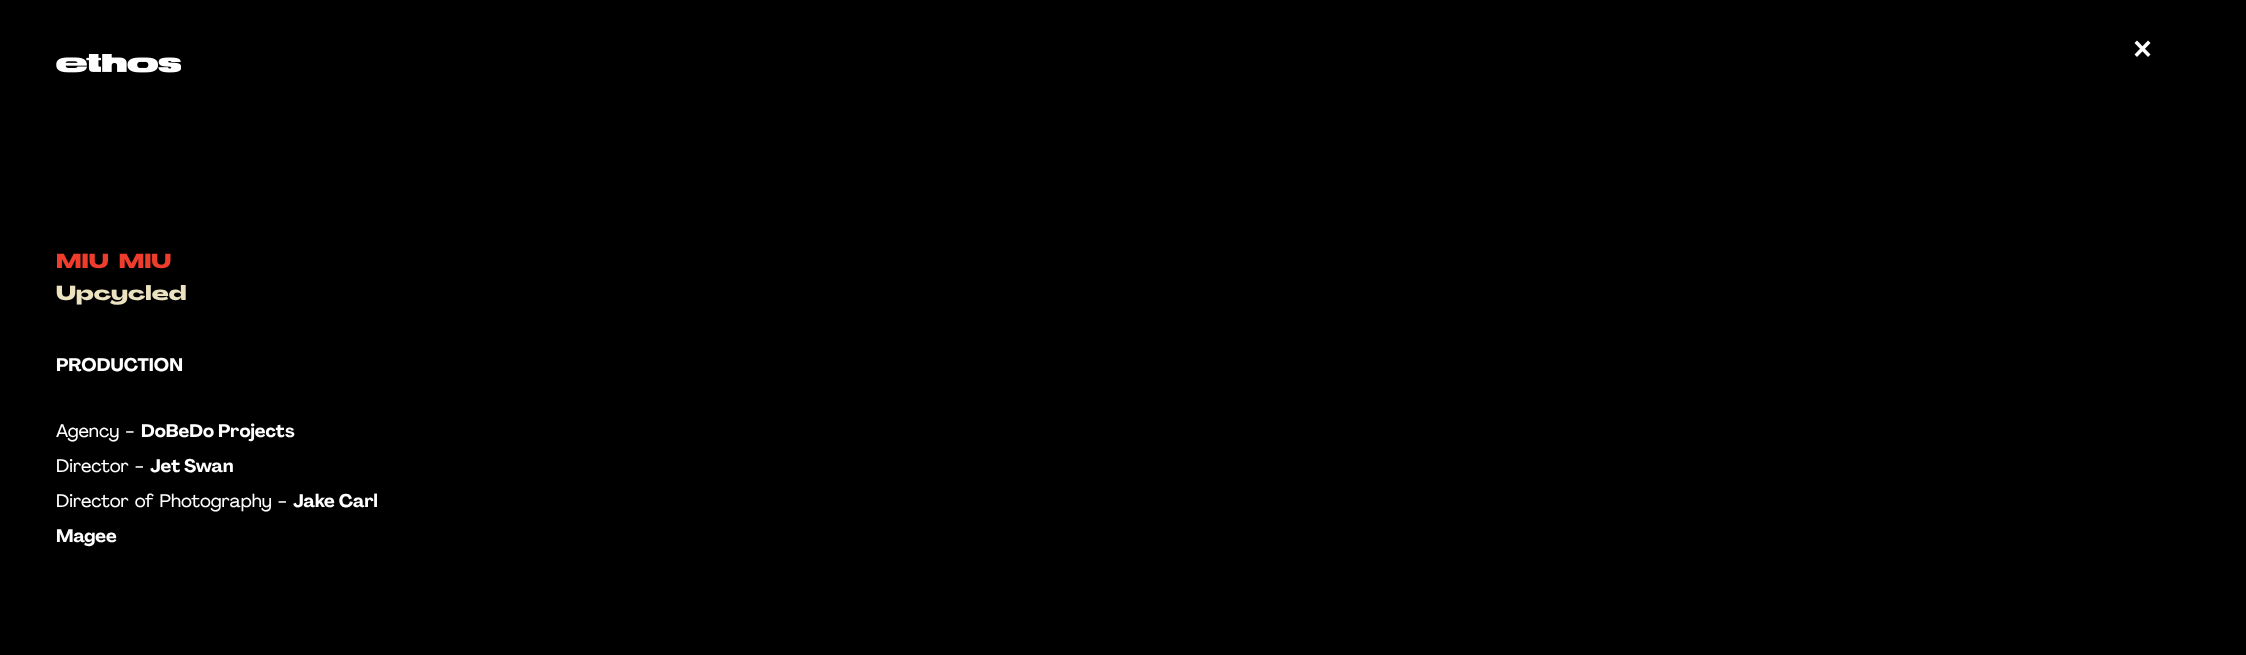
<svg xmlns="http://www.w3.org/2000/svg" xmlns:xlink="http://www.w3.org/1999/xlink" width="2246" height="655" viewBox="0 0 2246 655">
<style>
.cls-1{font:900 20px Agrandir;fill:#ef3d2d}
.cls-2{font:900 20px Agrandir;fill:#ebe2c0}
.cls-3{font:bold 18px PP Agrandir;fill:#ffffff}
.cls-4{font:18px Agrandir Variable;fill:#ffffff}
</style>
<rect width="100%" height="100%" fill="#000000"/>
<path fill="#ffffff" d="M2137 40.5L2150.5 54.5L2148 57L2134.5 43Z"/>
<path fill="#ffffff" d="M2134.5 54.5L2148 40.5L2150.5 43L2137 57Z"/>
<image xlink:href="image0.png" x="56" y="54" width="125" height="19"/>
<text class="cls-1" x="56" y="268">MIU MIU</text>
<text class="cls-2" x="56" y="300">Upcycled</text>
<text class="cls-3" x="56" y="371">PRODUCTION</text>
<text class="cls-4" x="56" y="437">Agency -</text>
<text class="cls-3" x="141" y="437">DoBeDo Projects</text>
<text class="cls-4" x="56" y="472">Director -</text>
<text class="cls-3" x="150" y="472">Jet Swan</text>
<text class="cls-4" x="56" y="507">Director of Photography -</text>
<text class="cls-3" x="293" y="507">Jake Carl</text>
<text class="cls-3" x="56" y="542">Magee</text>
</svg>
